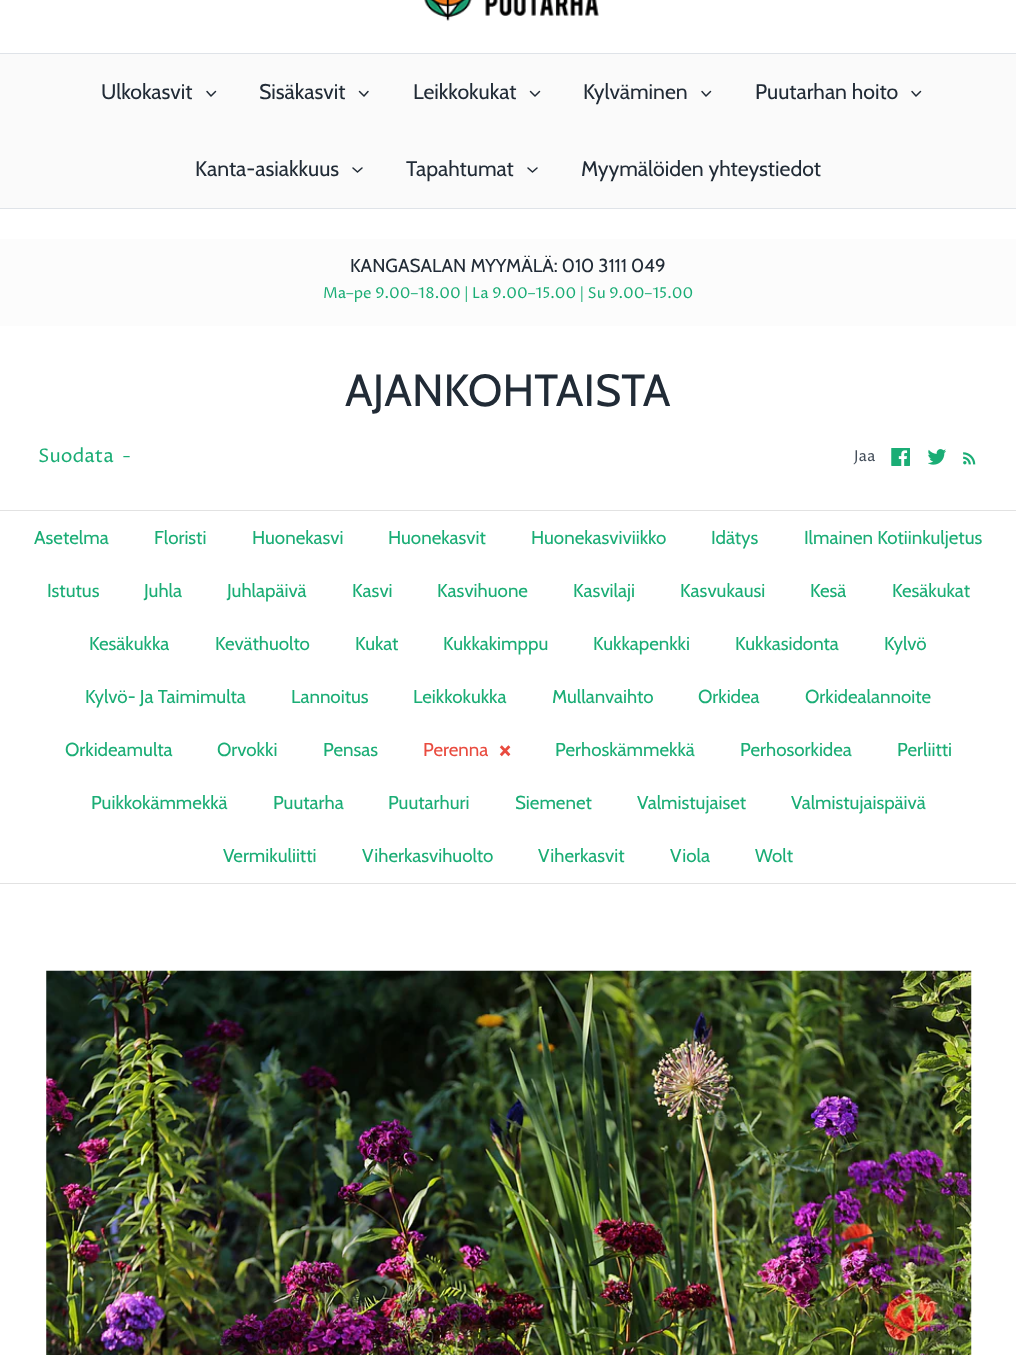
<svg xmlns="http://www.w3.org/2000/svg" xmlns:xlink="http://www.w3.org/1999/xlink" width="1016" height="1355" viewBox="0 0 1016 1355">
<style>
.cls-1{font:21.25px Cabin;fill:#212b36}
.cls-2{font:18.75px Cabin;fill:#212b36}
.cls-3{font:15px Proza Libre;fill:#1aad75}
.cls-4{font:45px Cabin;fill:#212b36}
.cls-5{font:18.75px Proza Libre;fill:#1aad75}
.cls-6{font:15px Proza Libre;fill:#454f5b}
.cls-7{font:18.75px Cabin;fill:#1aad75}
.cls-8{font:18.75px Cabin;fill:#e94b3f}
.cls-9{font:bold 28px Cabin;fill:#e94b3f}
</style>
<rect width="100%" height="100%" fill="#ffffff"/>
<rect fill="#dfe3e8" x="0" y="53" width="1016" height="1"/>
<image xlink:href="image0.png" x="424" y="0" width="175" height="21"/>
<rect fill="#dfe3e8" x="0" y="208" width="1016" height="1"/>
<rect fill="#fafafa" x="0" y="54" width="1016" height="154"/>
<path fill="none" stroke="#212b36" stroke-width="1.5" stroke-linecap="round" stroke-linejoin="round" d="M207 91.5L211 96L215.5 91.5"/>
<path fill="none" stroke="#212b36" stroke-width="1.5" stroke-linecap="round" stroke-linejoin="round" d="M359.5 91.5L364 96L368 91.5"/>
<path fill="none" stroke="#212b36" stroke-width="1.5" stroke-linecap="round" stroke-linejoin="round" d="M530.5 91.5L535 96L539.5 91.5"/>
<path fill="none" stroke="#212b36" stroke-width="1.5" stroke-linecap="round" stroke-linejoin="round" d="M702 91.5L706 96L710.5 91.5"/>
<path fill="none" stroke="#212b36" stroke-width="1.5" stroke-linecap="round" stroke-linejoin="round" d="M912 91.5L916 96L920.5 91.5"/>
<path fill="none" stroke="#212b36" stroke-width="1.5" stroke-linecap="round" stroke-linejoin="round" d="M353 168L357.5 172L362 168"/>
<path fill="none" stroke="#212b36" stroke-width="1.5" stroke-linecap="round" stroke-linejoin="round" d="M528 168L532.5 172L537 168"/>
<rect fill="#fcfcfc" x="0" y="239" width="1016" height="87"/>
<image xlink:href="image1.png" x="891" y="448" width="19" height="18"/>
<image xlink:href="image2.png" x="928" y="449" width="18" height="16"/>
<image xlink:href="image3.png" x="963" y="452" width="13" height="13"/>
<rect fill="#e2e2e2" x="0" y="510" width="1016" height="1"/>
<rect fill="#e2e2e2" x="0" y="883" width="1016" height="1"/>
<image xlink:href="image4.png" x="46" y="970" width="926" height="385"/>
<text class="cls-1" x="101" y="99">Ulkokasvit</text>
<text class="cls-1" x="259" y="99">Sisäkasvit</text>
<text class="cls-1" x="413" y="99">Leikkokukat</text>
<text class="cls-1" x="583" y="99">Kylväminen</text>
<text class="cls-1" x="755" y="99">Puutarhan hoito</text>
<text class="cls-1" x="195" y="176">Kanta-asiakkuus</text>
<text class="cls-1" x="406" y="176">Tapahtumat</text>
<text class="cls-1" x="581" y="176">Myymälöiden yhteystiedot</text>
<text class="cls-2" x="350" y="272">KANGASALAN MYYMÄLÄ: 010 3111 049</text>
<text class="cls-3" x="323" y="298">Ma–pe 9.00–18.00 | La 9.00–15.00 | Su 9.00–15.00</text>
<text class="cls-4" x="345" y="406">AJANKOHTAISTA</text>
<text class="cls-5" x="38" y="462">Suodata</text>
<text class="cls-5" x="122" y="462">-</text>
<text class="cls-6" x="854" y="461">Jaa</text>
<text class="cls-7" x="34" y="544">Asetelma</text>
<text class="cls-7" x="154" y="544">Floristi</text>
<text class="cls-7" x="252" y="544">Huonekasvi</text>
<text class="cls-7" x="388" y="544">Huonekasvit</text>
<text class="cls-7" x="531" y="544">Huonekasviviikko</text>
<text class="cls-7" x="711" y="544">Idätys</text>
<text class="cls-7" x="804" y="544">Ilmainen Kotiinkuljetus</text>
<text class="cls-7" x="47" y="597">Istutus</text>
<text class="cls-7" x="144" y="597">Juhla</text>
<text class="cls-7" x="227" y="597">Juhlapäivä</text>
<text class="cls-7" x="352" y="597">Kasvi</text>
<text class="cls-7" x="437" y="597">Kasvihuone</text>
<text class="cls-7" x="573" y="597">Kasvilaji</text>
<text class="cls-7" x="680" y="597">Kasvukausi</text>
<text class="cls-7" x="810" y="597">Kesä</text>
<text class="cls-7" x="892" y="597">Kesäkukat</text>
<text class="cls-7" x="89" y="650">Kesäkukka</text>
<text class="cls-7" x="215" y="650">Keväthuolto</text>
<text class="cls-7" x="355" y="650">Kukat</text>
<text class="cls-7" x="443" y="650">Kukkakimppu</text>
<text class="cls-7" x="593" y="650">Kukkapenkki</text>
<text class="cls-7" x="735" y="650">Kukkasidonta</text>
<text class="cls-7" x="884" y="650">Kylvö</text>
<text class="cls-7" x="85" y="703">Kylvö- Ja Taimimulta</text>
<text class="cls-7" x="291" y="703">Lannoitus</text>
<text class="cls-7" x="413" y="703">Leikkokukka</text>
<text class="cls-7" x="552" y="703">Mullanvaihto</text>
<text class="cls-7" x="698" y="703">Orkidea</text>
<text class="cls-7" x="805" y="703">Orkidealannoite</text>
<text class="cls-7" x="65" y="756">Orkideamulta</text>
<text class="cls-7" x="217" y="756">Orvokki</text>
<text class="cls-7" x="323" y="756">Pensas</text>
<text class="cls-8" x="423" y="756">Perenna</text>
<text class="cls-9" x="499" y="759">×</text>
<text class="cls-7" x="555" y="756">Perhoskämmekkä</text>
<text class="cls-7" x="740" y="756">Perhosorkidea</text>
<text class="cls-7" x="897" y="756">Perliitti</text>
<text class="cls-7" x="91" y="809">Puikkokämmekkä</text>
<text class="cls-7" x="273" y="809">Puutarha</text>
<text class="cls-7" x="388" y="809">Puutarhuri</text>
<text class="cls-7" x="515" y="809">Siemenet</text>
<text class="cls-7" x="637" y="809">Valmistujaiset</text>
<text class="cls-7" x="791" y="809">Valmistujaispäivä</text>
<text class="cls-7" x="223" y="862">Vermikuliitti</text>
<text class="cls-7" x="362" y="862">Viherkasvihuolto</text>
<text class="cls-7" x="538" y="862">Viherkasvit</text>
<text class="cls-7" x="670" y="862">Viola</text>
<text class="cls-7" x="755" y="862">Wolt</text>
</svg>
